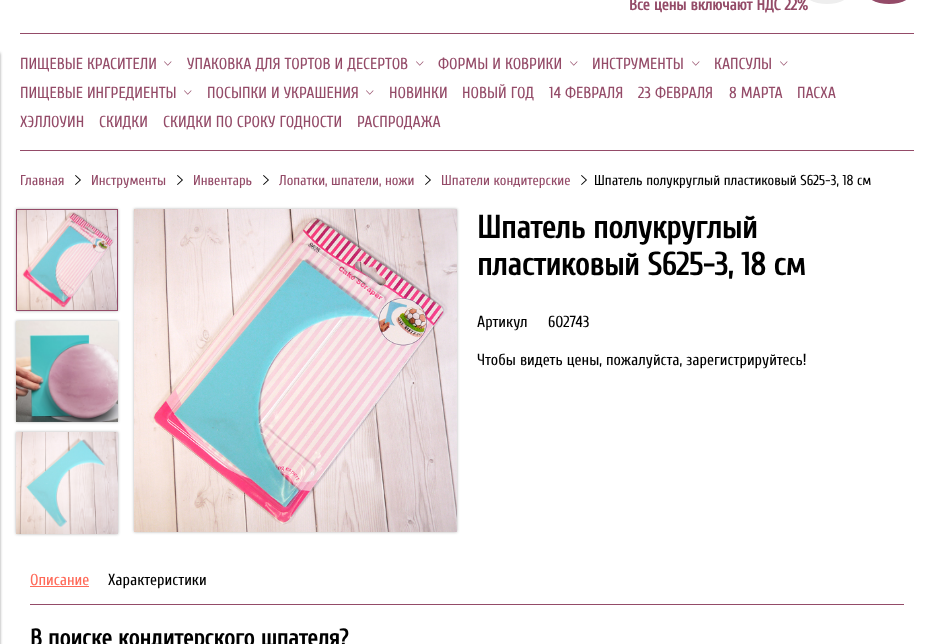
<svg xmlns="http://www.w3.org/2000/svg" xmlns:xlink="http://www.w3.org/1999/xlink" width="934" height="644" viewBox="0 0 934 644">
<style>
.cls-1{font:bold 16px Cuprum;fill:#944b68}
.cls-2{font:16px Cuprum;fill:#944b68}
.cls-3{font:14.4px Cuprum;fill:#944b68}
.cls-4{font:14.4px Cuprum;fill:#000000}
.cls-5{font:bold 32px Cuprum;fill:#000000}
.cls-6{font:16px Cuprum;fill:#000000}
.cls-7{font:16px Cuprum;fill:#ff6a59}
.cls-8{font:bold 24px Cuprum;fill:#000000}
</style>
<rect width="100%" height="100%" fill="#ffffff"/>
<rect fill="#000000" fill-opacity="0.4" filter="blur(1.5px)" x="-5" y="53" width="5" height="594"/>
<rect fill="#944b68" x="864" y="-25" width="50" height="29" rx="25"/>
<rect fill="#944b68" x="20" y="33" width="894" height="1"/>
<image xlink:href="image0.png" x="164" y="61" width="8" height="5"/>
<image xlink:href="image0.png" x="416" y="61" width="8" height="5"/>
<image xlink:href="image0.png" x="570" y="61" width="8" height="5"/>
<image xlink:href="image0.png" x="692" y="61" width="8" height="5"/>
<image xlink:href="image0.png" x="780" y="61" width="8" height="5"/>
<image xlink:href="image0.png" x="184" y="90" width="8" height="5"/>
<image xlink:href="image0.png" x="366" y="90" width="8" height="5"/>
<rect fill="#944b68" x="20" y="150" width="894" height="1"/>
<image xlink:href="image1.png" x="75" y="175" width="6" height="10"/>
<image xlink:href="image1.png" x="177" y="175" width="6" height="10"/>
<image xlink:href="image1.png" x="263" y="175" width="6" height="10"/>
<image xlink:href="image1.png" x="425" y="175" width="6" height="10"/>
<image xlink:href="image1.png" x="581" y="175" width="6" height="10"/>
<rect fill="#000000" fill-opacity="0.3" filter="blur(1.5px)" x="16" y="209" width="102" height="102"/>
<rect fill="none" stroke="#944b68" x="16.5" y="209.5" width="101" height="101"/>
<image xlink:href="image2.png" x="17" y="210" width="100" height="100"/>
<rect fill="#000000" fill-opacity="0.3" filter="blur(1.5px)" x="16" y="321" width="102" height="101"/>
<image xlink:href="image3.png" x="16" y="321" width="102" height="101"/>
<rect fill="#000000" fill-opacity="0.3" filter="blur(1.5px)" x="16" y="432" width="102" height="102"/>
<image xlink:href="image4.png" x="16" y="432" width="102" height="102"/>
<rect fill="#000000" fill-opacity="0.3" filter="blur(1.5px)" x="134" y="209" width="323" height="323"/>
<image xlink:href="image5.png" x="134" y="209" width="323" height="323"/>
<rect fill="#944b68" x="30" y="604" width="874" height="1"/>
<rect fill="#ff6a59" x="30" y="586" width="59" height="1"/>
<text class="cls-1" x="629" y="10">Все цены включают НДС 22%</text>
<rect fill="#eeeeee" x="802" y="-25" width="50" height="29" rx="25"/>
<text class="cls-2" x="20" y="69">ПИЩЕВЫЕ КРАСИТЕЛИ</text>
<text class="cls-2" x="187" y="69">УПАКОВКА ДЛЯ ТОРТОВ И ДЕСЕРТОВ</text>
<text class="cls-2" x="438" y="69">ФОРМЫ И КОВРИКИ</text>
<text class="cls-2" x="592" y="69">ИНСТРУМЕНТЫ</text>
<text class="cls-2" x="714" y="69">КАПСУЛЫ</text>
<text class="cls-2" x="20" y="98">ПИЩЕВЫЕ ИНГРЕДИЕНТЫ</text>
<text class="cls-2" x="207" y="98">ПОСЫПКИ И УКРАШЕНИЯ</text>
<text class="cls-2" x="389" y="98">НОВИНКИ</text>
<text class="cls-2" x="462" y="98">НОВЫЙ ГОД</text>
<text class="cls-2" x="549" y="98">14 ФЕВРАЛЯ</text>
<text class="cls-2" x="638" y="98">23 ФЕВРАЛЯ</text>
<text class="cls-2" x="729" y="98">8 МАРТА</text>
<text class="cls-2" x="797" y="98">ПАСХА</text>
<text class="cls-2" x="20" y="127">ХЭЛЛОУИН</text>
<text class="cls-2" x="99" y="127">СКИДКИ</text>
<text class="cls-2" x="163" y="127">СКИДКИ ПО СРОКУ ГОДНОСТИ</text>
<text class="cls-2" x="357" y="127">РАСПРОДАЖА</text>
<text class="cls-3" x="20" y="185">Главная</text>
<text class="cls-3" x="91" y="185">Инструменты</text>
<text class="cls-3" x="193" y="185">Инвентарь</text>
<text class="cls-3" x="279" y="185">Лопатки, шпатели, ножи</text>
<text class="cls-3" x="441" y="185">Шпатели кондитерские</text>
<text class="cls-4" x="594" y="185">Шпатель полукруглый пластиковый S625-3, 18 см</text>
<text class="cls-5"><tspan x="477" y="238">Шпатель полукруглый</tspan><tspan x="477" y="275">пластиковый S625-3, 18 см</tspan></text>
<text class="cls-6" x="477" y="327">Артикул</text>
<text class="cls-6" x="548" y="327">602743</text>
<text class="cls-6" x="477" y="365">Чтобы видеть цены, пожалуйста, зарегистрируйтесь!</text>
<text class="cls-7" x="30" y="585">Описание</text>
<text class="cls-6" x="108" y="585">Характеристики</text>
<text class="cls-8" x="30" y="646">В поиске кондитерского шпателя?</text>
</svg>
